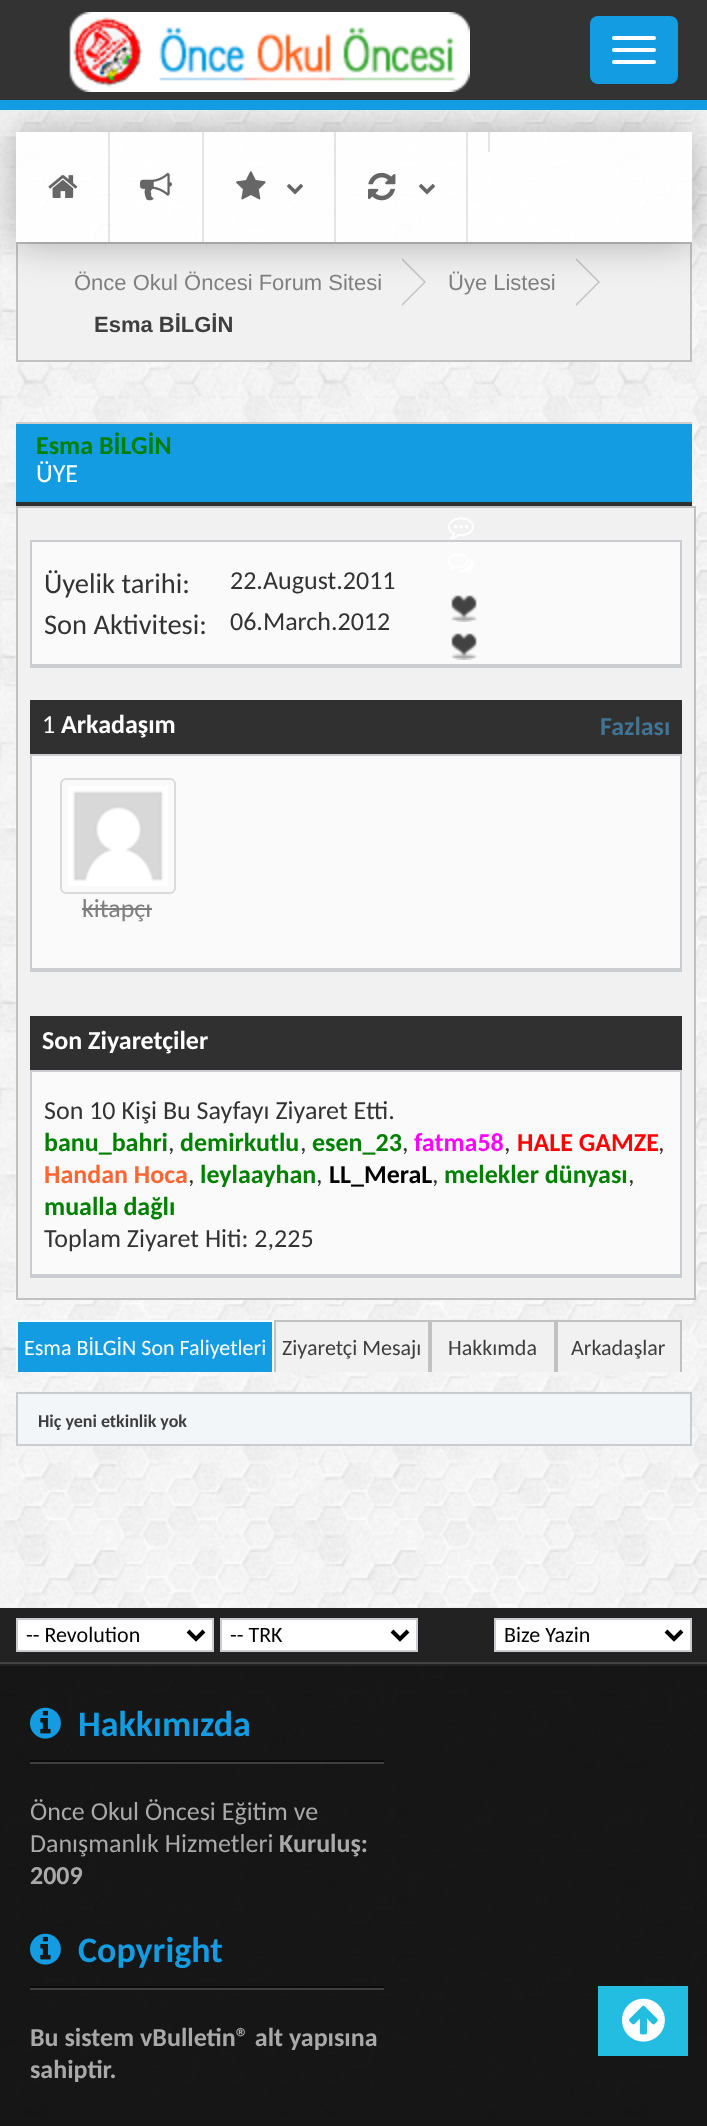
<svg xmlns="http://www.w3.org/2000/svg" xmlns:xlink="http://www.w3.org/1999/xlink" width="707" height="2126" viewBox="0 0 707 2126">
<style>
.cls-1{font:22px Liberation Sans;fill:#7f7f7f}
.cls-2{font:bold 22px Liberation Sans;fill:#3e3e3e}
.cls-3{font:bold 26px Carlito;fill:#008000}
.cls-4{font:26px Carlito;fill:#ffffff}
.cls-5{font:28.5px Carlito;fill:#333333}
.cls-6{font:26px Carlito;fill:#333333}
.cls-7{font:bold 26px Carlito;fill:#ffffff}
.cls-8{font:bold 26px Carlito;fill:#417394}
.cls-9{font:26px Carlito;fill:#7f7f7f}
.cls-10{font:bold 26px Carlito;fill:#ff00ff}
.cls-11{font:bold 26px Carlito;fill:#ff0000}
.cls-12{font:bold 26px Carlito;fill:#ff6633}
.cls-13{font:bold 26px Carlito;fill:#000000}
.cls-14{font:22px Carlito;fill:#ffffff}
.cls-15{font:22px Carlito;fill:#3e3e3e}
.cls-16{font:bold 18px Carlito;fill:#3e3e3e}
.cls-17{font:22px Carlito;fill:#000000}
.cls-18{font:bold 36px Carlito;fill:#139ce1}
.cls-19{font:26px Carlito;fill:#a9a9a9}
.cls-20{font:bold 26px Carlito;fill:#a9a9a9}
</style>
<defs>
<clipPath id="clip1"><path d="M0 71H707V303H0ZM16 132H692V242H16Z" clip-rule="evenodd"/></clipPath>
</defs>
<rect width="100%" height="100%" fill="#ffffff"/>
<image xlink:href="image0.png" x="0" y="110" width="707" height="2016"/>
<rect fill="#f1f1f1" stroke="#c1c1c1" stroke-width="2" x="17" y="243" width="674" height="118"/>
<path fill="#c1c1c1" d="M402 306V258L426 282Z"/>
<path fill="#f1f1f1" d="M400 306V258L424 282Z"/>
<path fill="#c1c1c1" d="M576 306V258L600 282Z"/>
<path fill="#f1f1f1" d="M574 306V258L598 282Z"/>
<g clip-path="url(#clip1)">
<rect fill="#000000" fill-opacity="0.3" filter="blur(20px)" x="16" y="132" width="676" height="110"/>
</g>
<rect fill="#333333" x="0" y="0" width="707" height="100"/>
<rect fill="#139ce1" x="0" y="100" width="707" height="10"/>
<image xlink:href="image1.png" x="69" y="12" width="401" height="80"/>
<rect fill="#139ce1" x="590" y="16" width="88" height="68" rx="8"/>
<rect fill="#ffffff" x="612" y="36" width="44" height="4" rx="2"/>
<rect fill="#ffffff" x="612" y="48" width="44" height="4" rx="2"/>
<rect fill="#ffffff" x="612" y="60" width="44" height="4" rx="2"/>
<rect fill="#ffffff" fill-opacity="0.9" x="16" y="132" width="676" height="110"/>
<rect fill="#000000" fill-opacity="0.1" x="108" y="132" width="2" height="110"/>
<image xlink:href="image2.png" x="48" y="175" width="30" height="23"/>
<rect fill="#e4e4e4" x="202" y="132" width="2" height="110"/>
<image xlink:href="image3.png" x="140" y="172" width="32" height="29"/>
<rect fill="#e4e4e4" x="334" y="132" width="2" height="110"/>
<image xlink:href="image4.png" x="236" y="171" width="30" height="29"/>
<image xlink:href="image5.png" x="287" y="184" width="16" height="11"/>
<rect fill="#e5e5e5" x="466" y="132" width="2" height="110"/>
<image xlink:href="image6.png" x="368" y="172" width="28" height="29"/>
<image xlink:href="image7.png" x="419" y="184" width="16" height="11"/>
<rect fill="#e4e4e4" x="488" y="132" width="2" height="20"/>
<rect fill="#139ce1" x="16" y="424" width="676" height="78"/>
<rect fill="#cecece" x="16" y="422" width="676" height="2"/>
<rect fill="#303030" x="16" y="502" width="676" height="4"/>
<rect fill="#f1f1f1" stroke="#c1c1c1" stroke-width="2" x="17" y="507" width="678" height="792"/>
<image xlink:href="image8.png" x="448" y="517" width="26" height="23"/>
<rect fill="#fafafa" x="32" y="542" width="648" height="122"/>
<image xlink:href="image9.png" x="448" y="554" width="26" height="19"/>
<image xlink:href="image10.png" x="451" y="595" width="26" height="27"/>
<image xlink:href="image10.png" x="451" y="633" width="26" height="27"/>
<rect fill="#cbcccf" x="30" y="540" width="652" height="2"/>
<rect fill="#cbcccf" x="680" y="540" width="2" height="128"/>
<rect fill="#cbcccf" x="30" y="664" width="652" height="4"/>
<rect fill="#cbcccf" x="30" y="540" width="2" height="128"/>
<rect fill="#303030" x="30" y="700" width="652" height="54"/>
<rect fill="#cbcccf" x="30" y="754" width="652" height="2"/>
<rect fill="#cbcccf" x="680" y="754" width="2" height="218"/>
<rect fill="#cbcccf" x="30" y="968" width="652" height="4"/>
<rect fill="#cbcccf" x="30" y="754" width="2" height="218"/>
<rect fill="#fafafa" x="32" y="756" width="648" height="212"/>
<rect fill="none" stroke="#dadada" stroke-width="2" x="61" y="779" width="114" height="114" rx="5"/>
<image xlink:href="image11.png" x="68" y="786" width="100" height="100"/>
<rect fill="#7f7f7f" x="82" y="908" width="70" height="2"/>
<rect fill="#303030" x="30" y="1016" width="652" height="54"/>
<rect fill="#cbcccf" x="30" y="1070" width="652" height="2"/>
<rect fill="#cbcccf" x="680" y="1070" width="2" height="208"/>
<rect fill="#cbcccf" x="30" y="1274" width="652" height="4"/>
<rect fill="#cbcccf" x="30" y="1070" width="2" height="208"/>
<rect fill="#fafafa" x="32" y="1072" width="648" height="202"/>
<rect fill="#139ce1" x="18" y="1322" width="254" height="50"/>
<rect fill="#f7fbfc" x="16" y="1320" width="258" height="2"/>
<rect fill="#f7fbfc" x="272" y="1320" width="2" height="52"/>
<rect fill="#f7fbfc" x="16" y="1320" width="2" height="52"/>
<rect fill="#f1f1f1" x="276" y="1322" width="152" height="50"/>
<rect fill="#c1c1c1" x="274" y="1320" width="408" height="2"/>
<rect fill="#c1c1c1" x="428" y="1320" width="4" height="52"/>
<rect fill="#c1c1c1" x="274" y="1320" width="2" height="52"/>
<rect fill="#f1f1f1" x="432" y="1322" width="122" height="50"/>
<rect fill="#c1c1c1" x="554" y="1320" width="4" height="52"/>
<rect fill="#f1f1f1" x="558" y="1322" width="122" height="50"/>
<rect fill="#c1c1c1" x="680" y="1320" width="2" height="52"/>
<rect fill="#f2f6f8" stroke="#cbcccf" stroke-width="2" x="17" y="1393" width="674" height="52"/>
<rect fill="#222222" x="0" y="1608" width="707" height="58"/>
<rect fill="#ffffff" stroke="#cbcccf" stroke-width="2" x="17" y="1619" width="196" height="32"/>
<path fill="none" stroke="#000000" stroke-width="4" d="M188 1631L196 1639L204 1631"/>
<rect fill="#ffffff" stroke="#cbcccf" stroke-width="2" x="221" y="1619" width="196" height="32"/>
<path fill="none" stroke="#000000" stroke-width="4" d="M392 1631L400 1639L408 1631"/>
<rect fill="#ffffff" stroke="#cbcccf" stroke-width="2" x="495" y="1619" width="196" height="32"/>
<path fill="none" stroke="#000000" stroke-width="4" d="M666 1631L674 1639L682 1631"/>
<rect fill="#444444" x="0" y="1662" width="707" height="2"/>
<rect fill="#000000" fill-opacity="0.91" x="0" y="1666" width="707" height="460"/>
<rect fill="#0b0b0b" x="30" y="1760" width="354" height="2"/>
<rect fill="#3e3e3e" x="30" y="1762" width="354" height="2"/>
<image xlink:href="image12.png" x="30" y="1707" width="31" height="32"/>
<rect fill="#0b0b0b" x="30" y="1986" width="354" height="2"/>
<rect fill="#3e3e3e" x="30" y="1988" width="354" height="2"/>
<image xlink:href="image13.png" x="30" y="1933" width="31" height="32"/>
<rect fill="#24bde2" x="598" y="1986" width="90" height="70"/>
<image xlink:href="image14.png" x="622" y="1998" width="43" height="44"/>
<text class="cls-1" x="74" y="290">Önce Okul Öncesi Forum Sitesi</text>
<text class="cls-1" x="448" y="290">Üye Listesi</text>
<text class="cls-2" x="94" y="332">Esma BİLGİN</text>
<text class="cls-3" x="36" y="454">Esma BİLGİN</text>
<text class="cls-4" x="36" y="482">ÜYE</text>
<text class="cls-5" x="44" y="593">Üyelik tarihi:</text>
<text class="cls-6" x="230" y="589">22.August.2011</text>
<text class="cls-5" x="44" y="634">Son Aktivitesi:</text>
<text class="cls-6" x="230" y="630">06.March.2012</text>
<text class="cls-4" x="42" y="733">1</text>
<text class="cls-7" x="61" y="733">Arkadaşım</text>
<text class="cls-8" x="600" y="735">Fazlası</text>
<text class="cls-9" x="82" y="917">kitapçı</text>
<text class="cls-7" x="42" y="1049">Son Ziyaretçiler</text>
<text class="cls-6" x="44" y="1119">Son 10 Kişi Bu Sayfayı Ziyaret Etti.</text>
<text class="cls-3" x="44" y="1151">banu_bahri</text>
<text class="cls-6" x="168" y="1151">,</text>
<text class="cls-3" x="180" y="1151">demirkutlu</text>
<text class="cls-6" x="300" y="1151">,</text>
<text class="cls-3" x="312" y="1151">esen_23</text>
<text class="cls-6" x="402" y="1151">,</text>
<text class="cls-10" x="414" y="1151">fatma58</text>
<text class="cls-6" x="504" y="1151">,</text>
<text class="cls-11" x="517" y="1151">HALE GAMZE</text>
<text class="cls-6" x="658" y="1151">,</text>
<text class="cls-12" x="44" y="1183">Handan Hoca</text>
<text class="cls-6" x="188" y="1183">,</text>
<text class="cls-3" x="200" y="1183">leylaayhan</text>
<text class="cls-6" x="316" y="1183">,</text>
<text class="cls-13" x="329" y="1183">LL_MeraL</text>
<text class="cls-6" x="432" y="1183">,</text>
<text class="cls-3" x="444" y="1183">melekler dünyası</text>
<text class="cls-6" x="628" y="1183">,</text>
<text class="cls-3" x="44" y="1215">mualla dağlı</text>
<text class="cls-6" x="44" y="1247">Toplam Ziyaret Hiti: 2,225</text>
<text class="cls-14" x="24" y="1355">Esma BİLGİN Son Faliyetleri</text>
<text class="cls-15" x="282" y="1355">Ziyaretçi Mesajı</text>
<text class="cls-15" x="448" y="1355">Hakkımda</text>
<text class="cls-15" x="571" y="1355">Arkadaşlar</text>
<text class="cls-16" x="38" y="1427">Hiç yeni etkinlik yok</text>
<text class="cls-17" x="26" y="1642">-- Revolution</text>
<text class="cls-17" x="230" y="1642">-- TRK</text>
<text class="cls-17" x="504" y="1642">Bize Yazin</text>
<text class="cls-18" x="78" y="1736">Hakkımızda</text>
<text class="cls-19"><tspan x="30" y="1820">Önce Okul Öncesi Eğitim ve</tspan><tspan x="30" y="1852">Danışmanlık Hizmetleri</tspan></text>
<text class="cls-20" x="279" y="1852">Kuruluş:</text>
<text class="cls-20" x="30" y="1884">2009</text>
<text class="cls-18" x="78" y="1962">Copyright</text>
<text class="cls-20"><tspan x="30" y="2046">Bu sistem vBulletin® alt yapısına</tspan><tspan x="30" y="2078">sahiptir.</tspan></text>
</svg>
